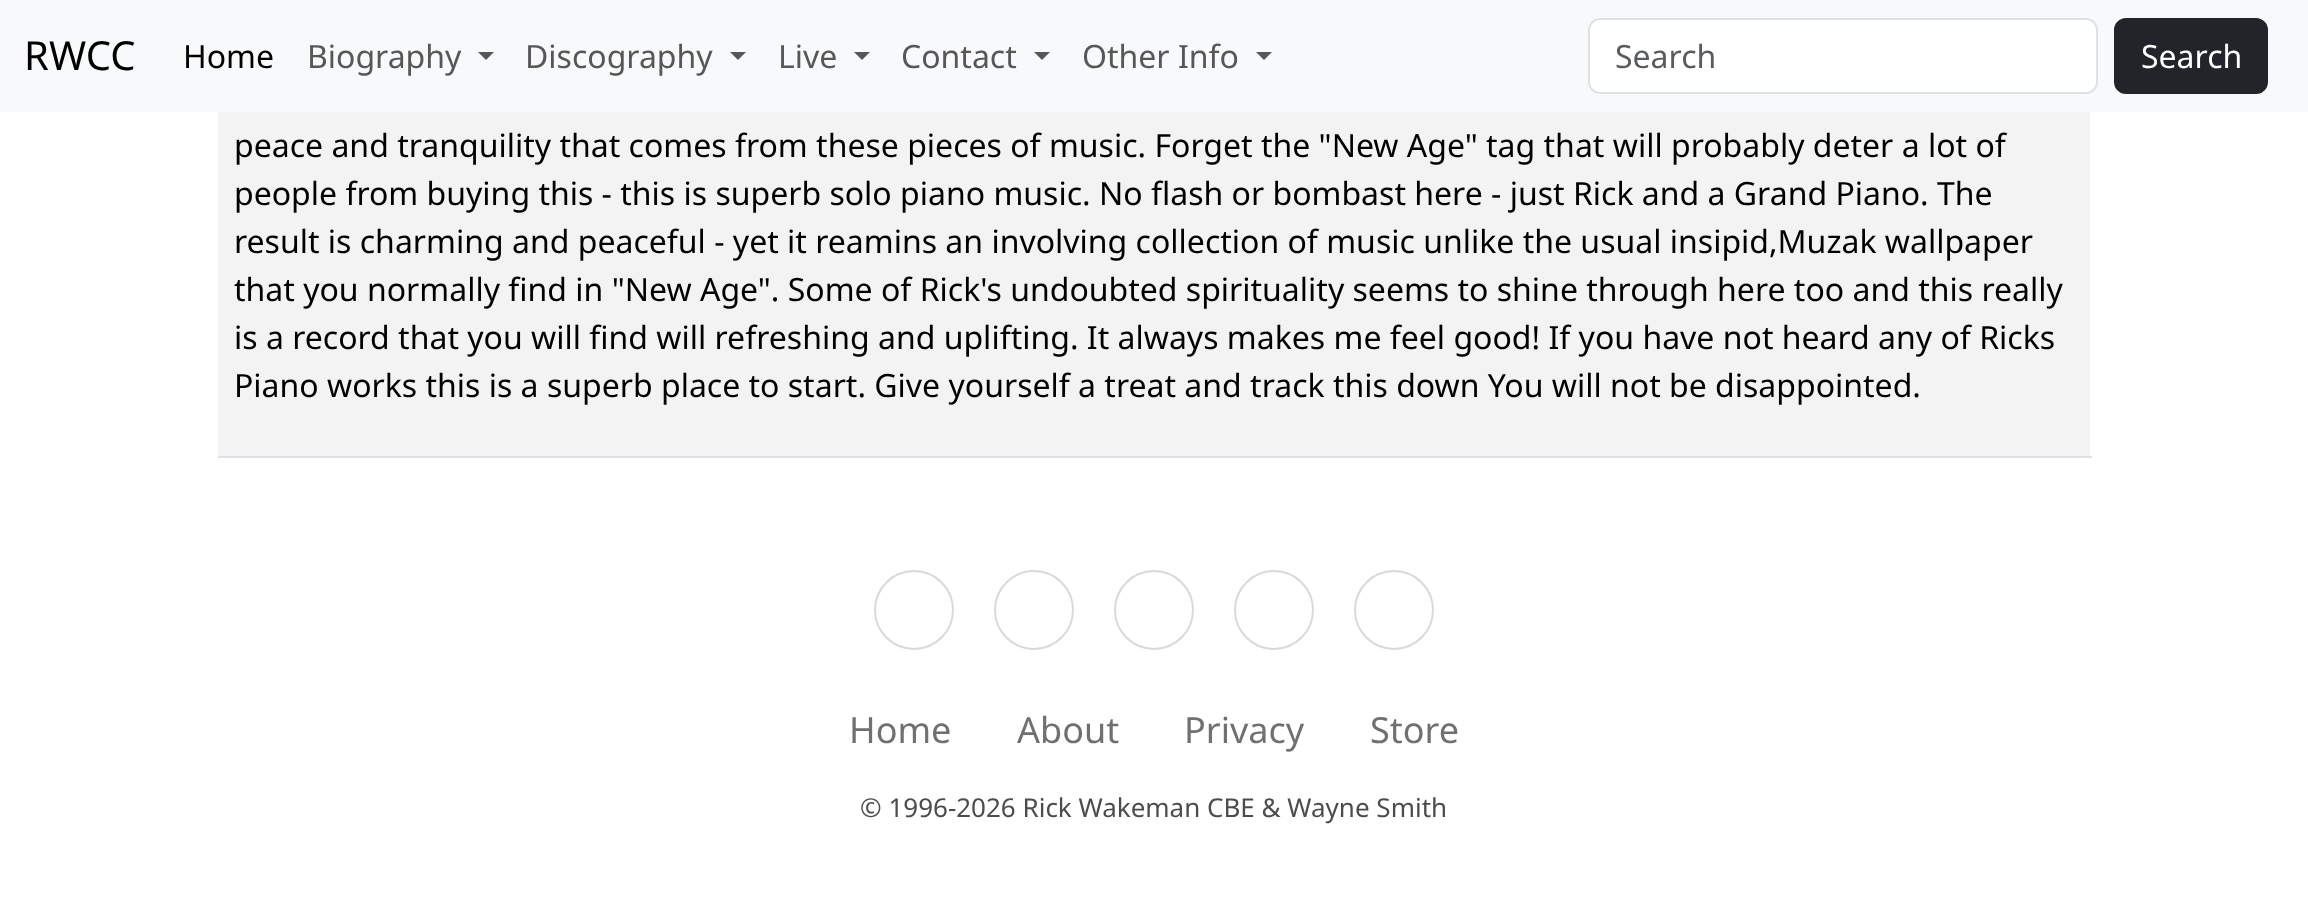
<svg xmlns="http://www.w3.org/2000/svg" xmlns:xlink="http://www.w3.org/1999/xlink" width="2308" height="907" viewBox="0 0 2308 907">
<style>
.cls-1{font:40px Noto Sans;fill:#000000}
.cls-2{font:32px Noto Sans;fill:#000000}
.cls-3{font:32px Noto Sans;fill:#575758}
.cls-4{font:32px Noto Sans;fill:#595c5f}
.cls-5{font:32px Noto Sans;fill:#ffffff}
.cls-6{font:36px Noto Sans;fill:#6f7071}
.cls-7{font:26px Noto Sans;fill:#4b4c4d}
</style>
<rect width="100%" height="100%" fill="#ffffff"/>
<rect fill="#f8f9fa" x="0" y="0" width="2308" height="112"/>
<path fill="#575758" d="M478 52H494L486 60Z"/>
<path fill="#575758" d="M730 52H746L738 60Z"/>
<path fill="#575758" d="M854 52H870L862 60Z"/>
<path fill="#575758" d="M1034 52H1050L1042 60Z"/>
<path fill="#575758" d="M1256 52H1272L1264 60Z"/>
<rect fill="#ffffff" stroke="#dee2e6" stroke-width="2" x="1589" y="19" width="508" height="74" rx="11"/>
<rect fill="#212529" stroke="#212529" stroke-width="2" x="2115" y="19" width="152" height="74" rx="11"/>
<rect fill="#f3f3f3" x="218" y="112" width="1872" height="344"/>
<rect fill="#dee2e6" x="218" y="456" width="1874" height="2"/>
<circle fill="none" stroke="#d9d9d9" stroke-width="2" cx="914" cy="610" r="39"/>
<circle fill="none" stroke="#d9d9d9" stroke-width="2" cx="1034" cy="610" r="39"/>
<circle fill="none" stroke="#d9d9d9" stroke-width="2" cx="1154" cy="610" r="39"/>
<circle fill="none" stroke="#d9d9d9" stroke-width="2" cx="1274" cy="610" r="39"/>
<circle fill="none" stroke="#d9d9d9" stroke-width="2" cx="1394" cy="610" r="39"/>
<text class="cls-1" x="24" y="70">RWCC</text>
<text class="cls-2" x="183" y="68">Home</text>
<text class="cls-3" x="307" y="68">Biography</text>
<text class="cls-3" x="525" y="68">Discography</text>
<text class="cls-3" x="778" y="68">Live</text>
<text class="cls-3" x="901" y="68">Contact</text>
<text class="cls-3" x="1082" y="68">Other Info</text>
<text class="cls-4" x="1615" y="68">Search</text>
<text class="cls-5" x="2141" y="68">Search</text>
<text class="cls-2"><tspan x="234" y="157">peace and tranquility that comes from these pieces of music. Forget the "New Age" tag that will probably deter a lot of</tspan><tspan x="234" y="205">people from buying this - this is superb solo piano music. No flash or bombast here - just Rick and a Grand Piano. The</tspan><tspan x="234" y="253">result is charming and peaceful - yet it reamins an involving collection of music unlike the usual insipid,Muzak wallpaper</tspan><tspan x="234" y="301">that you normally find in "New Age". Some of Rick's undoubted spirituality seems to shine through here too and this really</tspan><tspan x="234" y="349">is a record that you will find will refreshing and uplifting. It always makes me feel good! If you have not heard any of Ricks</tspan><tspan x="234" y="397">Piano works this is a superb place to start. Give yourself a treat and track this down You will not be disappointed.</tspan></text>
<text class="cls-6" x="849" y="743">Home</text>
<text class="cls-6" x="1017" y="743">About</text>
<text class="cls-6" x="1184" y="743">Privacy</text>
<text class="cls-6" x="1370" y="743">Store</text>
<text class="cls-7" x="860" y="817">© 1996-2026 Rick Wakeman CBE &amp; Wayne Smith</text>
</svg>
